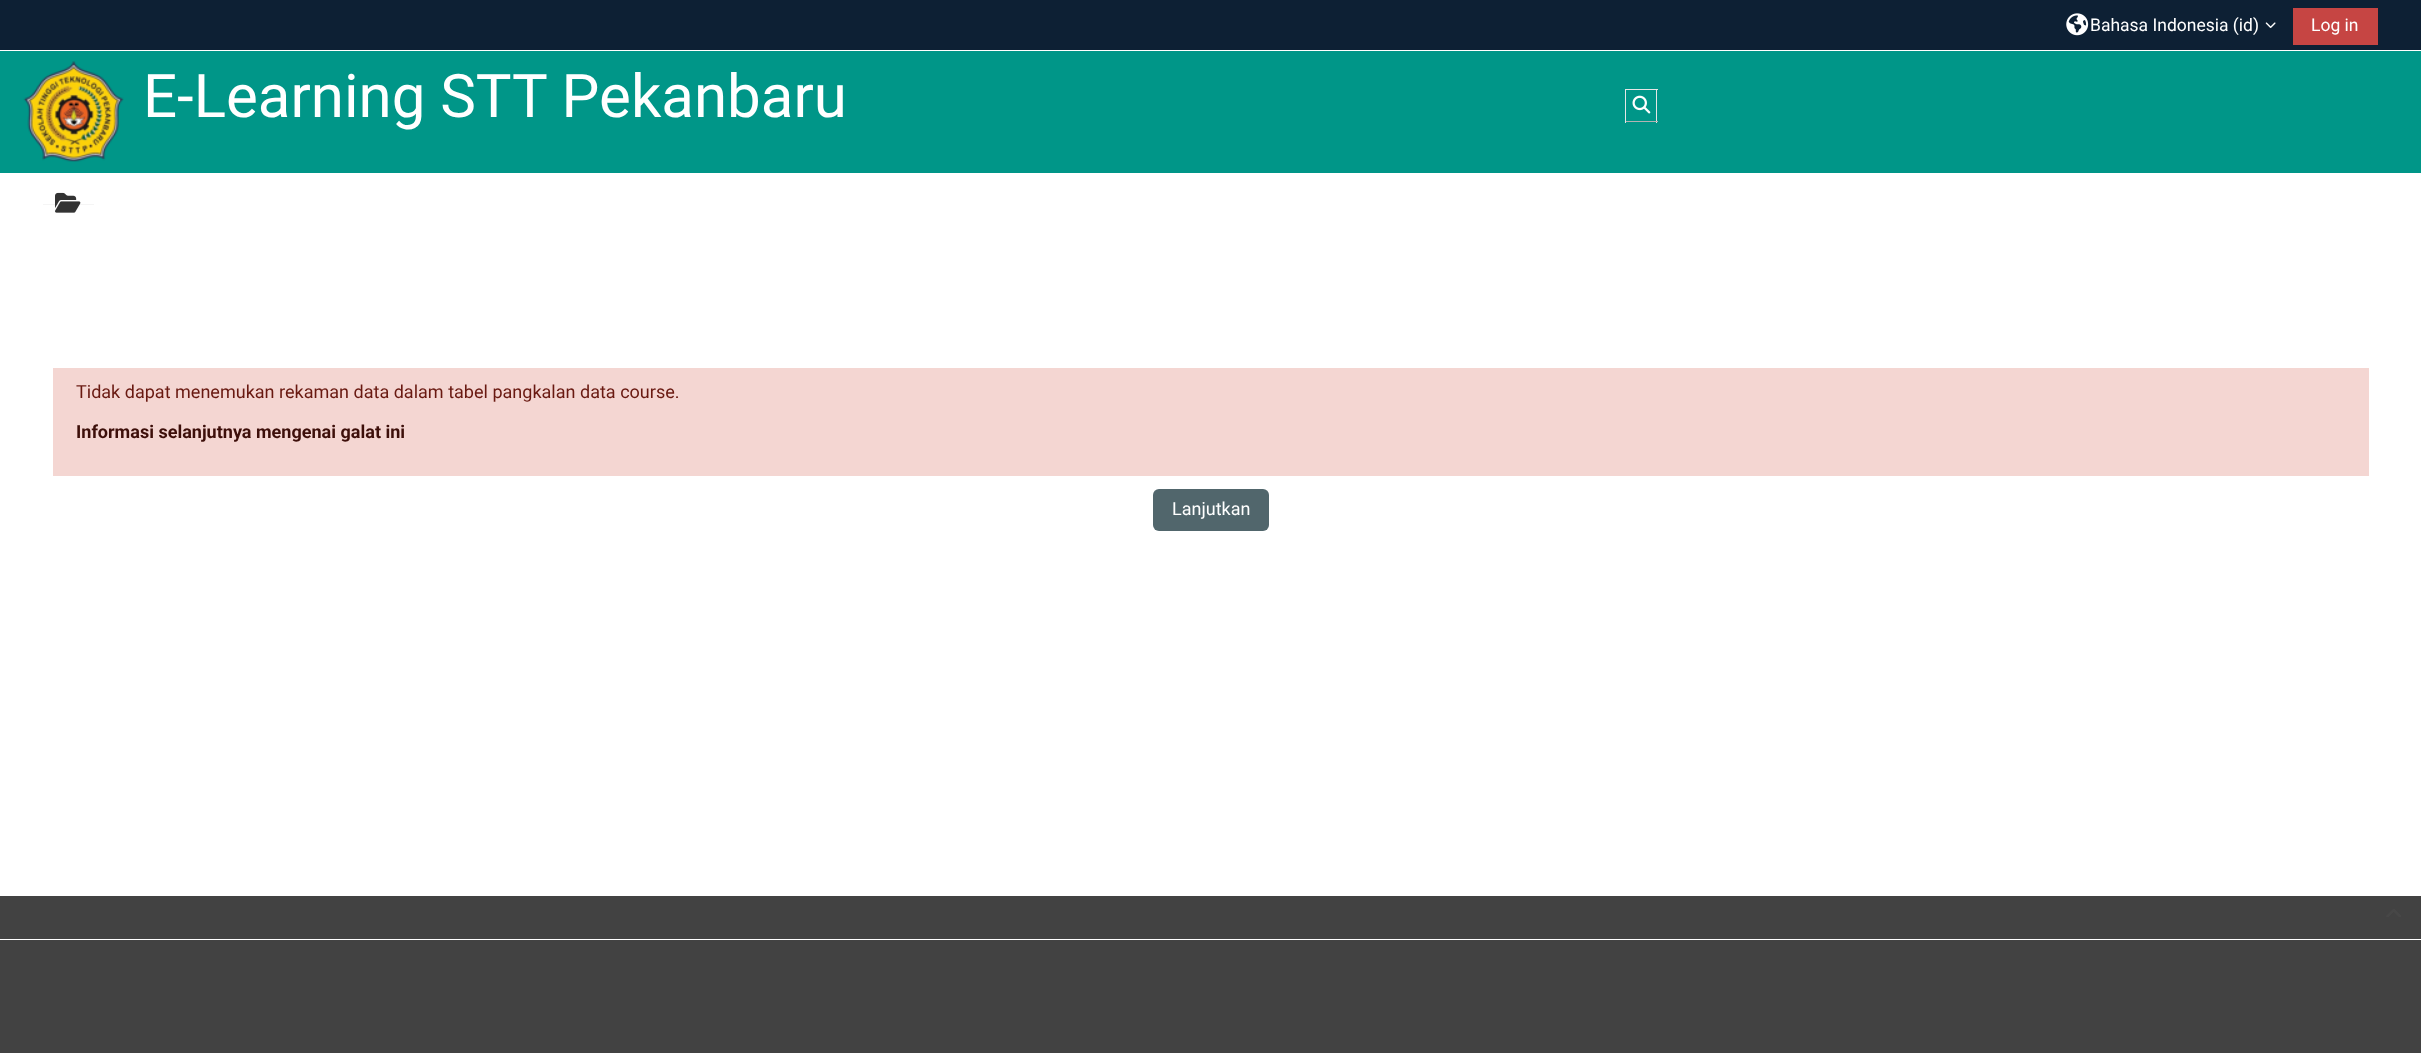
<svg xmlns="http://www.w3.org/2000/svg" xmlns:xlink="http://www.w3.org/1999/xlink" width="2421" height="1053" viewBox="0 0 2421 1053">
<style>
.cls-1{font:17.5px Roboto;fill:#ffffff}
.cls-2{font:60px Roboto;fill:#ffffff}
.cls-3{font:18.05px Roboto;fill:#691911}
.cls-4{font:bold 18.05px Roboto;fill:#3d0f0a}
.cls-5{font:18px Roboto;fill:#ffffff}
</style>
<rect width="100%" height="100%" fill="#ffffff"/>
<rect fill="#009688" x="0" y="51" width="2421" height="122"/>
<rect fill="#0d2034" x="0" y="0" width="2421" height="50"/>
<image xlink:href="image0.png" x="2066" y="13" width="23" height="23"/>
<image xlink:href="image1.png" x="2265" y="22" width="11" height="6"/>
<rect fill="#c64543" x="2293" y="8" width="85" height="37"/>
<image xlink:href="image2.png" x="23" y="61" width="101" height="101"/>
<rect fill="#e6e6e6" x="1625" y="89" width="33" height="1"/>
<rect fill="#e6e6e6" x="1656" y="89" width="1" height="34"/>
<rect fill="#b3b3b3" x="1625" y="121" width="33" height="1"/>
<rect fill="#e6e6e6" x="1625" y="89" width="1" height="34"/>
<image xlink:href="image3.png" x="1632" y="95" width="19" height="19"/>
<rect fill="#f5f5f5" x="43" y="204" width="51" height="1"/>
<image xlink:href="image4.png" x="55" y="192" width="26" height="21"/>
<rect fill="#f4d6d2" x="53" y="368" width="2316" height="108"/>
<rect fill="#51666c" x="1153" y="489" width="116" height="42" rx="6"/>
<rect fill="#424242" x="0" y="896" width="2421" height="157"/>
<rect fill="#ffffff" x="0" y="939" width="2421" height="1"/>
<image xlink:href="image5.png" x="2386" y="909" width="15" height="8"/>
<text class="cls-1" x="2090" y="31">Bahasa Indonesia (id)</text>
<text class="cls-1" x="2311" y="31">Log in</text>
<text class="cls-2" x="143" y="117">E-Learning STT Pekanbaru</text>
<text class="cls-3" x="76" y="398">Tidak dapat menemukan rekaman data dalam tabel pangkalan data course.</text>
<text class="cls-4" x="76" y="438">Informasi selanjutnya mengenai galat ini</text>
<text class="cls-5" x="1172" y="515">Lanjutkan</text>
</svg>
